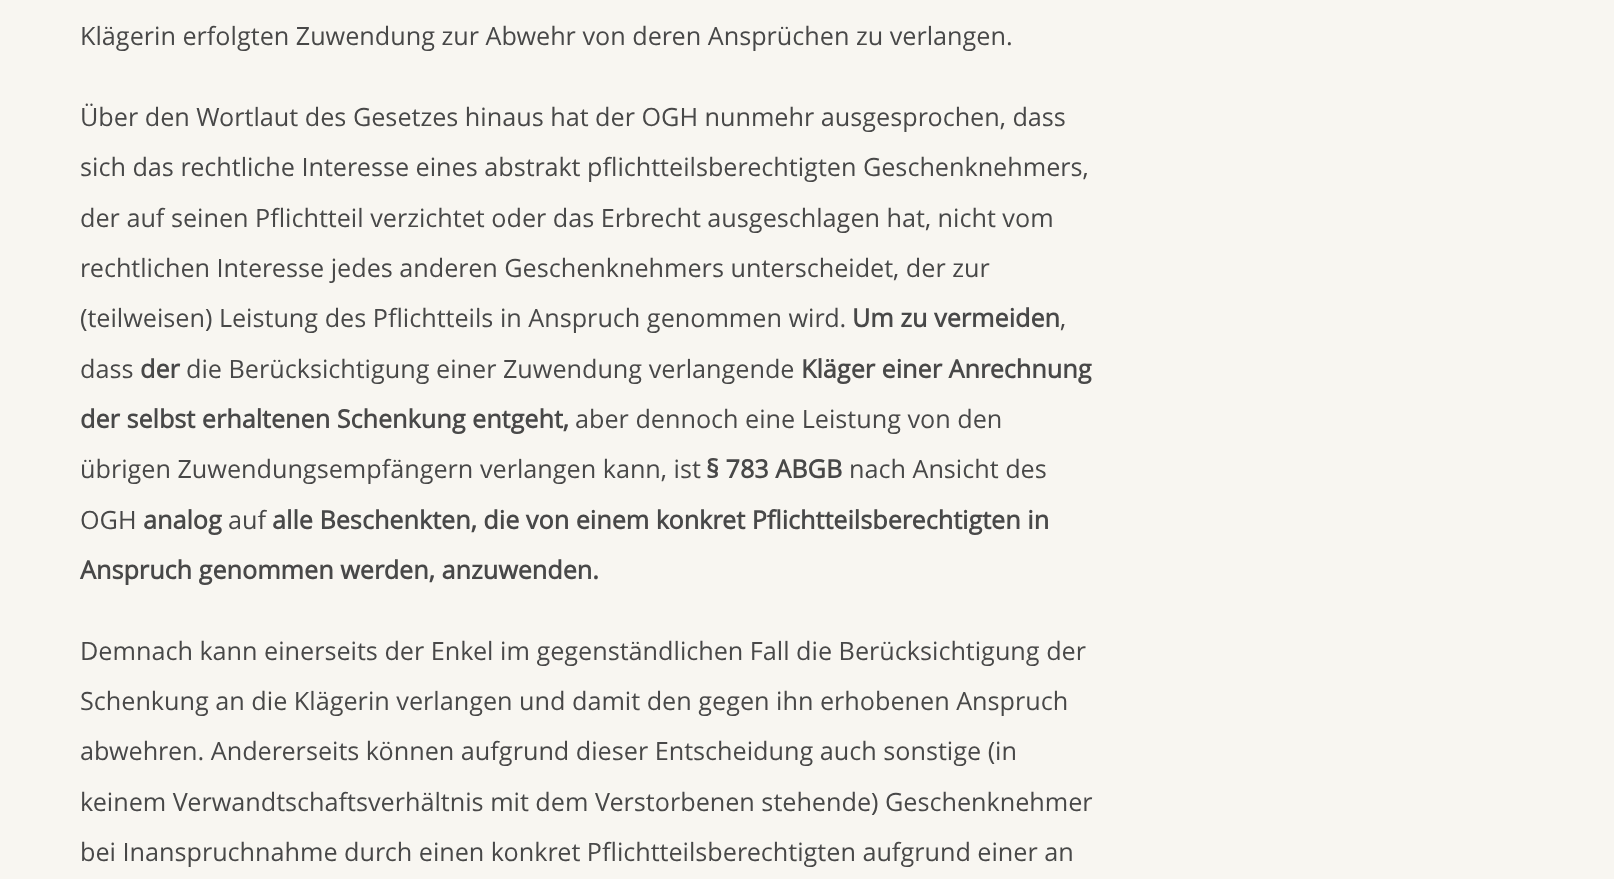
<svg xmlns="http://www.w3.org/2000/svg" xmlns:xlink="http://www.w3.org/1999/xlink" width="1614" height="879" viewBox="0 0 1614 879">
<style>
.cls-1{font:25.2px Open Sans;fill:#484848}
.cls-2{font:bold 25.2px Open Sans;fill:#484848}
</style>
<rect width="100%" height="100%" fill="#f8f6f1"/>
<text class="cls-1" x="80" y="45">Klägerin erfolgten Zuwendung zur Abwehr von deren Ansprüchen zu verlangen.</text>
<text class="cls-1"><tspan x="80" y="126">Über den Wortlaut des Gesetzes hinaus hat der OGH nunmehr ausgesprochen, dass</tspan><tspan x="80" y="176">sich das rechtliche Interesse eines abstrakt pflichtteilsberechtigten Geschenknehmers,</tspan></text>
<text class="cls-1"><tspan x="80" y="227">der auf seinen Pflichtteil verzichtet oder das Erbrecht ausgeschlagen hat, nicht vom</tspan><tspan x="80" y="277">rechtlichen Interesse jedes anderen Geschenknehmers unterscheidet, der zur</tspan><tspan x="80" y="327">(teilweisen) Leistung des Pflichtteils in Anspruch genommen wird.</tspan></text>
<text class="cls-2" x="852" y="327">Um zu vermeiden</text>
<text class="cls-1" x="1060" y="327">,</text>
<text class="cls-1" x="80" y="378">dass</text>
<text class="cls-2" x="140" y="378">der</text>
<text class="cls-1" x="186" y="378">die Berücksichtigung einer Zuwendung verlangende</text>
<text class="cls-2" x="801" y="378">Kläger einer Anrechnung</text>
<text class="cls-2" x="80" y="428">der selbst erhaltenen Schenkung entgeht,</text>
<text class="cls-1" x="575" y="428">aber dennoch eine Leistung von den</text>
<text class="cls-1" x="80" y="478">übrigen Zuwendungsempfängern verlangen kann, ist</text>
<text class="cls-2" x="706" y="478">§ 783 ABGB</text>
<text class="cls-1" x="849" y="478">nach Ansicht des</text>
<text class="cls-1" x="80" y="529">OGH</text>
<text class="cls-2" x="143" y="529">analog</text>
<text class="cls-1" x="228" y="529">auf</text>
<text class="cls-2" x="272" y="529">alle Beschenkten, die von einem konkret Pflichtteilsberechtigten in</text>
<text class="cls-2" x="80" y="579">Anspruch genommen werden, anzuwenden.</text>
<text class="cls-1"><tspan x="80" y="660">Demnach kann einerseits der Enkel im gegenständlichen Fall die Berücksichtigung der</tspan><tspan x="80" y="710">Schenkung an die Klägerin verlangen und damit den gegen ihn erhobenen Anspruch</tspan><tspan x="80" y="760">abwehren. Andererseits können aufgrund dieser Entscheidung auch sonstige (in</tspan></text>
<text class="cls-1"><tspan x="80" y="811">keinem Verwandtschaftsverhältnis mit dem Verstorbenen stehende) Geschenknehmer</tspan><tspan x="80" y="861">bei Inanspruchnahme durch einen konkret Pflichtteilsberechtigten aufgrund einer an</tspan></text>
</svg>
